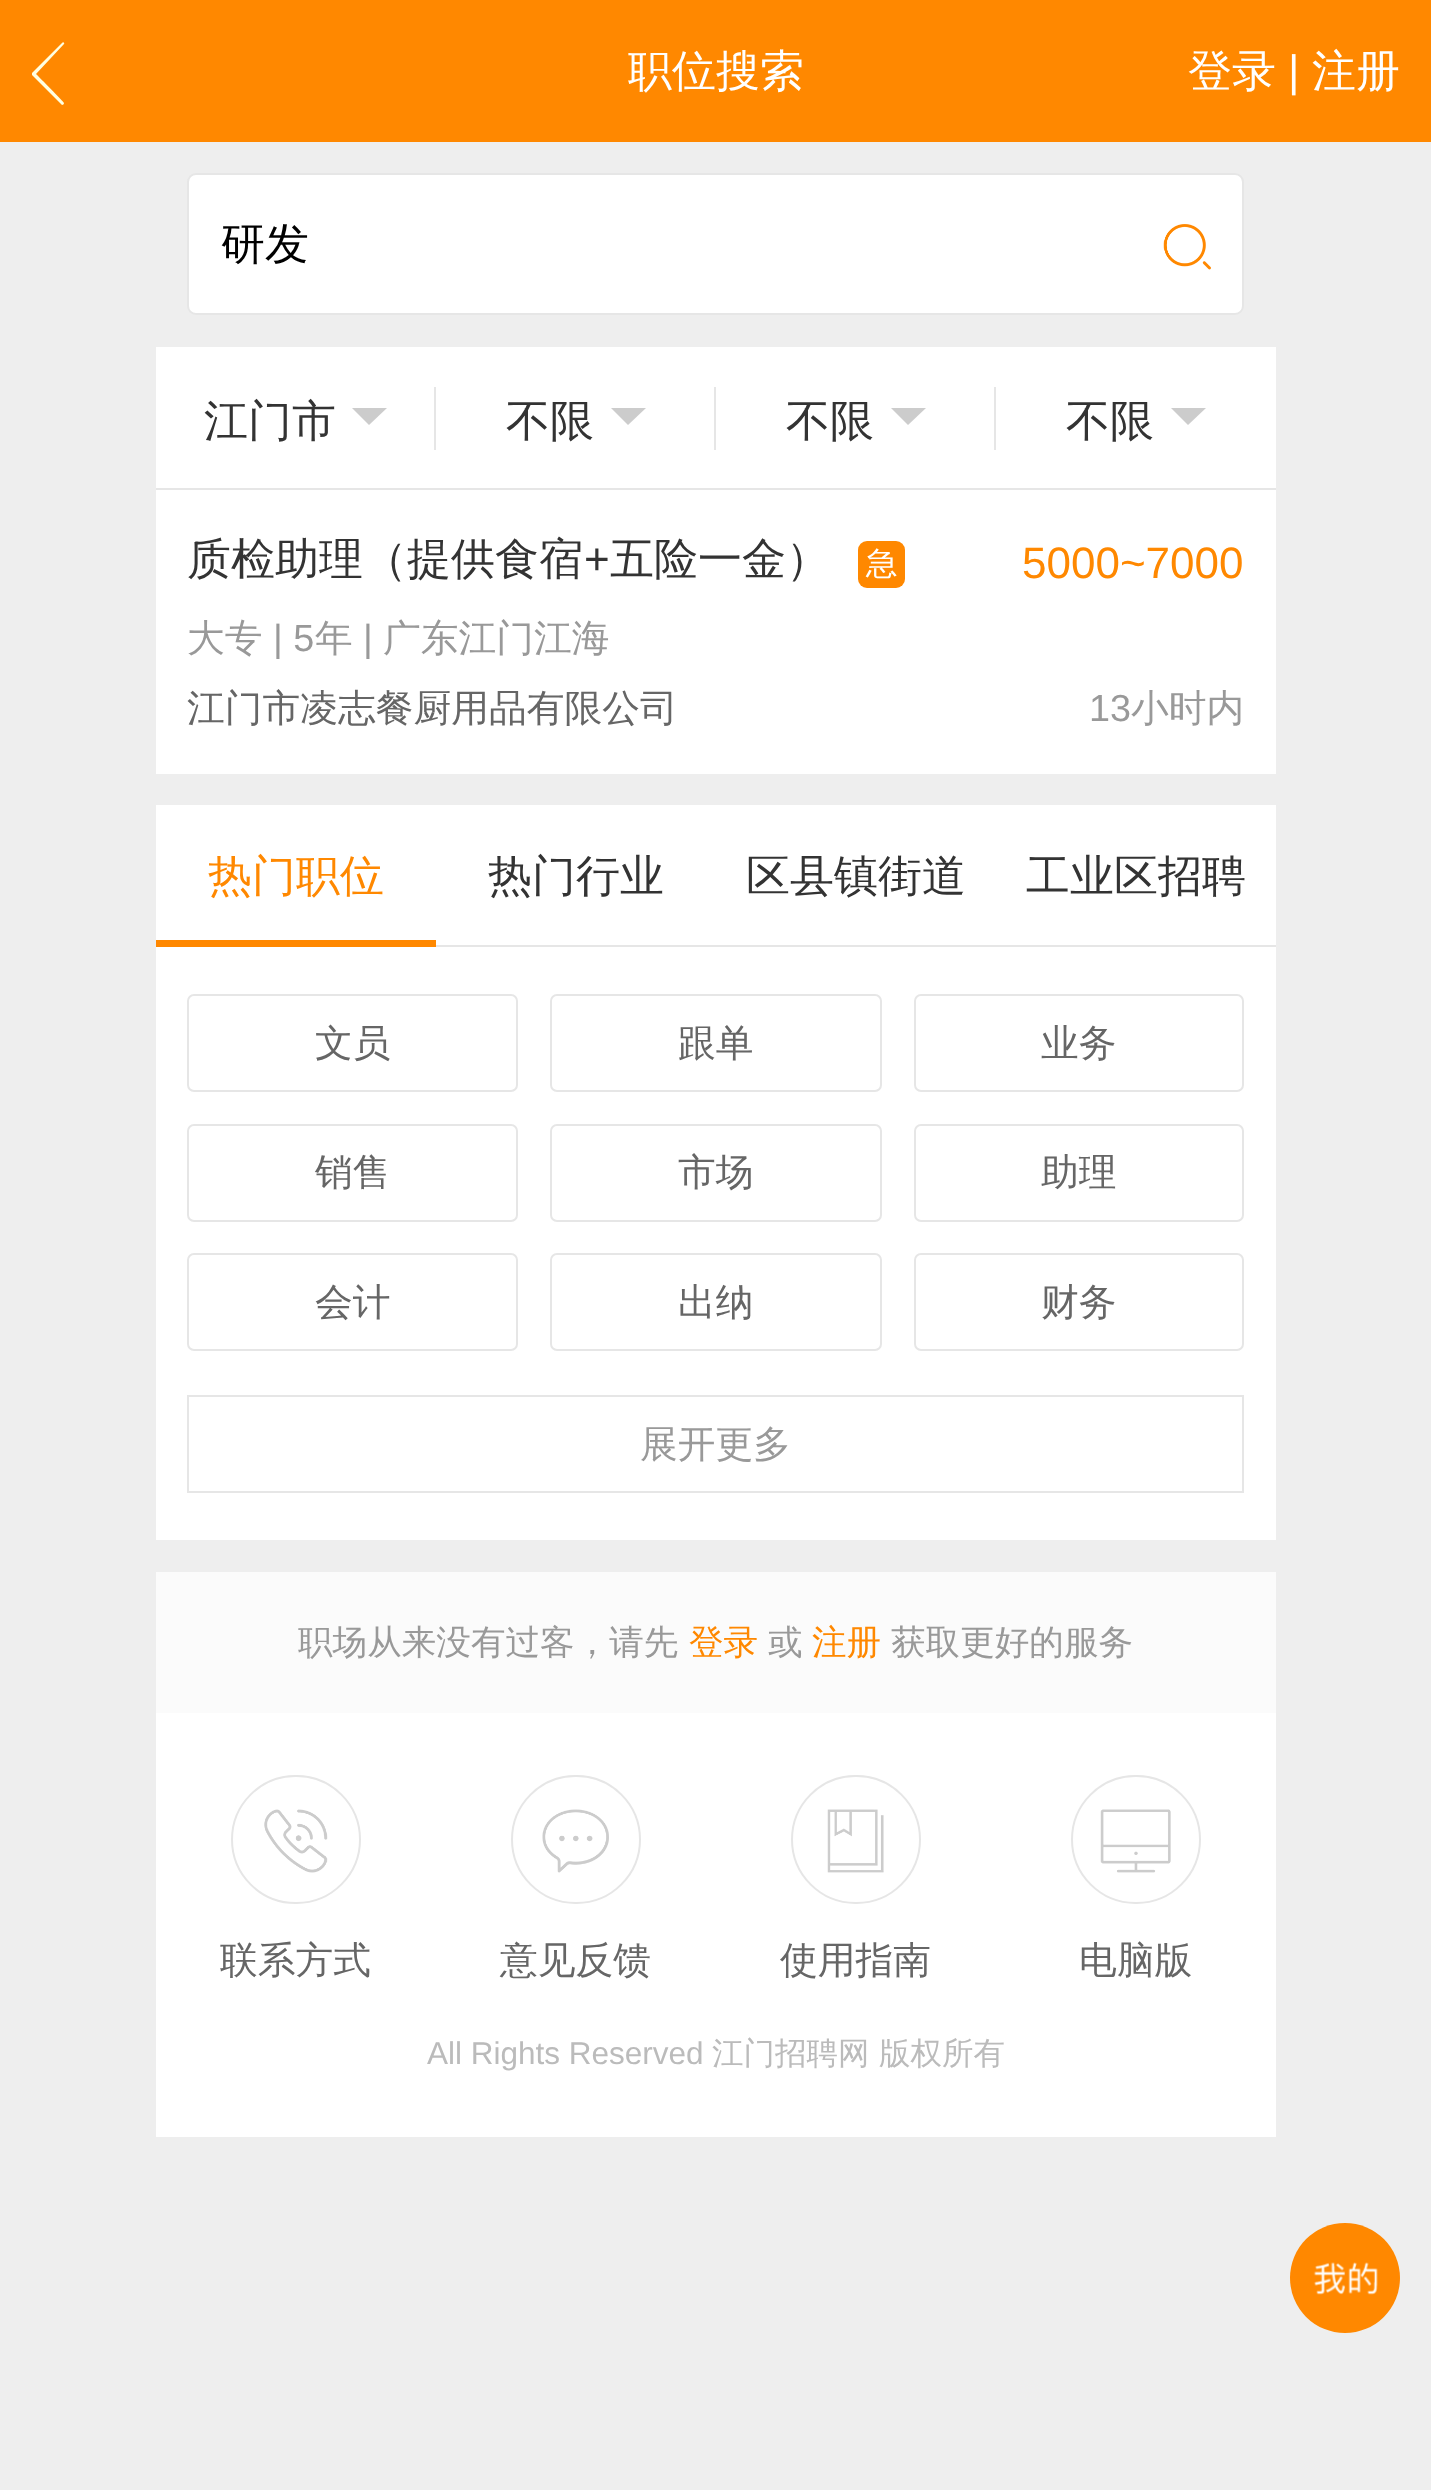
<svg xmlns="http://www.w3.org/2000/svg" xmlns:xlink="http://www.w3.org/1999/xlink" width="1431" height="2490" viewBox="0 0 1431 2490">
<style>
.cls-1{font:500 44px WenQuanYi Zen Hei;fill:#ffffff}
.cls-2{font:44px Liberation Sans;fill:#ffffff}
.cls-3{font:500 44px WenQuanYi Zen Hei;fill:#000000}
.cls-4{font:500 44px WenQuanYi Zen Hei;fill:#333333}
.cls-5{font:44px Liberation Sans;fill:#333333}
.cls-6{font:500 31.5px WenQuanYi Zen Hei;fill:#ffffff}
.cls-7{font:44px Liberation Sans;fill:#ff8800}
.cls-8{font:500 37.75px WenQuanYi Zen Hei;fill:#999999}
.cls-9{font:37.75px Liberation Sans;fill:#999999}
.cls-10{font:500 37.75px WenQuanYi Zen Hei;fill:#666666}
.cls-11{font:500 44px WenQuanYi Zen Hei;fill:#ff8800}
.cls-12{font:500 34.6px WenQuanYi Zen Hei;fill:#999999}
.cls-13{font:500 34.6px WenQuanYi Zen Hei;fill:#ff8800}
.cls-14{font:31.5px Liberation Sans;fill:#bbbbbb}
.cls-15{font:500 31.5px WenQuanYi Zen Hei;fill:#bbbbbb}
</style>
<rect width="100%" height="100%" fill="#eeeeee"/>
<rect fill="#ff8800" x="0" y="0" width="1431" height="142"/>
<path fill="#ffffe1" d="M32 75L62 105C63 105 64 104 64 103C64 102 39 77 36 74L64 44C65 43 63 41 62 43L32 73V74Z"/>
<rect fill="#ffffff" stroke="#e6e6e6" stroke-width="2" x="188" y="174" width="1055" height="140" rx="8"/>
<image xlink:href="image0.png" x="1163" y="224" width="48" height="46"/>
<rect fill="#ffffff" x="156" y="347" width="1120" height="141"/>
<rect fill="#e6e6e6" x="156" y="488" width="1120" height="2"/>
<path fill="#cccccc" d="M352 408H387L369 425Z"/>
<rect fill="#e6e6e6" x="434" y="387" width="2" height="63"/>
<path fill="#cccccc" d="M611 408H646L628 425Z"/>
<rect fill="#e6e6e6" x="714" y="387" width="2" height="63"/>
<path fill="#cccccc" d="M891 408H926L908 425Z"/>
<rect fill="#e6e6e6" x="994" y="387" width="2" height="63"/>
<path fill="#cccccc" d="M1171 408H1206L1188 425Z"/>
<rect fill="#ffffff" x="156" y="490" width="1120" height="284"/>
<rect fill="#ff8800" x="858" y="541" width="47" height="47" rx="9"/>
<rect fill="#ffffff" x="156" y="805" width="1120" height="140"/>
<rect fill="#ff8800" x="156" y="940" width="280" height="7"/>
<rect fill="#e6e6e6" x="436" y="945" width="840" height="2"/>
<rect fill="#ffffff" x="156" y="947" width="1120" height="593"/>
<rect fill="none" stroke="#e6e6e6" stroke-width="2" x="188" y="995" width="329" height="96" rx="6"/>
<rect fill="none" stroke="#e6e6e6" stroke-width="2" x="551" y="995" width="330" height="96" rx="6"/>
<rect fill="none" stroke="#e6e6e6" stroke-width="2" x="915" y="995" width="328" height="96" rx="6"/>
<rect fill="none" stroke="#e6e6e6" stroke-width="2" x="188" y="1125" width="329" height="96" rx="6"/>
<rect fill="none" stroke="#e6e6e6" stroke-width="2" x="551" y="1125" width="330" height="96" rx="6"/>
<rect fill="none" stroke="#e6e6e6" stroke-width="2" x="915" y="1125" width="328" height="96" rx="6"/>
<rect fill="none" stroke="#e6e6e6" stroke-width="2" x="188" y="1254" width="329" height="96" rx="6"/>
<rect fill="none" stroke="#e6e6e6" stroke-width="2" x="551" y="1254" width="330" height="96" rx="6"/>
<rect fill="none" stroke="#e6e6e6" stroke-width="2" x="915" y="1254" width="328" height="96" rx="6"/>
<rect fill="none" stroke="#e6e6e6" stroke-width="2" x="188" y="1396" width="1055" height="96"/>
<rect fill="#fbfbfb" x="156" y="1572" width="1120" height="141"/>
<rect fill="#ffffff" x="156" y="1713" width="1120" height="424"/>
<image xlink:href="image1.png" x="264" y="1809" width="64" height="64"/>
<rect fill="none" stroke="#e6e6e6" stroke-width="2" x="232" y="1776" width="128" height="127" rx="63.5"/>
<image xlink:href="image2.png" x="542" y="1809" width="67" height="64"/>
<rect fill="none" stroke="#e6e6e6" stroke-width="2" x="512" y="1776" width="128" height="127" rx="63.5"/>
<image xlink:href="image3.png" x="827" y="1809" width="57" height="64"/>
<rect fill="none" stroke="#e6e6e6" stroke-width="2" x="792" y="1776" width="128" height="127" rx="63.5"/>
<image xlink:href="image4.png" x="1100" y="1809" width="71" height="64"/>
<rect fill="none" stroke="#e6e6e6" stroke-width="2" x="1072" y="1776" width="128" height="127" rx="63.5"/>
<circle fill="#ff8800" cx="1345" cy="2278" r="55"/>
<image xlink:href="image5.png" x="1313" y="2262" width="65" height="33"/>
<text class="cls-1" x="628" y="86">职位搜索</text>
<text class="cls-1" x="1188" y="86">登录</text>
<text class="cls-2" x="1288" y="86">|</text>
<text class="cls-1" x="1312" y="86">注册</text>
<text class="cls-3" x="221" y="259">研发</text>
<text class="cls-4" x="204" y="436">江门市</text>
<text class="cls-4" x="506" y="436">不限</text>
<text class="cls-4" x="786" y="436">不限</text>
<text class="cls-4" x="1066" y="436">不限</text>
<text class="cls-4" x="187" y="574">质检助理（提供食宿</text>
<text class="cls-5" x="584" y="574">+</text>
<text class="cls-4" x="610" y="574">五险一金）</text>
<text class="cls-6" x="866" y="574">急</text>
<text class="cls-7" x="1022" y="578">5000~7000</text>
<text class="cls-8" x="187" y="651">大专</text>
<text class="cls-9" x="273" y="651">| 5</text>
<text class="cls-8" x="315" y="651">年</text>
<text class="cls-9" x="363" y="651">|</text>
<text class="cls-8" x="383" y="651">广东江门江海</text>
<text class="cls-10" x="187" y="721">江门市凌志餐厨用品有限公司</text>
<text class="cls-9" x="1089" y="721">13</text>
<text class="cls-8" x="1131" y="721">小时内</text>
<text class="cls-11" x="208" y="891">热门职位</text>
<text class="cls-4" x="488" y="891">热门行业</text>
<text class="cls-4" x="746" y="891">区县镇街道</text>
<text class="cls-4" x="1026" y="891">工业区招聘</text>
<text class="cls-10" x="315" y="1056">文员</text>
<text class="cls-10" x="678" y="1056">跟单</text>
<text class="cls-10" x="1041" y="1056">业务</text>
<text class="cls-10" x="315" y="1185">销售</text>
<text class="cls-10" x="678" y="1185">市场</text>
<text class="cls-10" x="1041" y="1185">助理</text>
<text class="cls-10" x="315" y="1315">会计</text>
<text class="cls-10" x="678" y="1315">出纳</text>
<text class="cls-10" x="1041" y="1315">财务</text>
<text class="cls-8" x="640" y="1457">展开更多</text>
<text class="cls-12" x="298" y="1654">职场从来没有过客，请先</text>
<text class="cls-13" x="689" y="1654">登录</text>
<text class="cls-12" x="768" y="1654">或</text>
<text class="cls-13" x="812" y="1654">注册</text>
<text class="cls-12" x="891" y="1654">获取更好的服务</text>
<text class="cls-10" x="220" y="1973">联系方式</text>
<text class="cls-10" x="500" y="1973">意见反馈</text>
<text class="cls-10" x="780" y="1973">使用指南</text>
<text class="cls-10" x="1079" y="1973">电脑版</text>
<text class="cls-14" x="427" y="2064">All Rights Reserved</text>
<text class="cls-15" x="712" y="2064">江门招聘网</text>
<text class="cls-15" x="879" y="2064">版权所有</text>
</svg>
